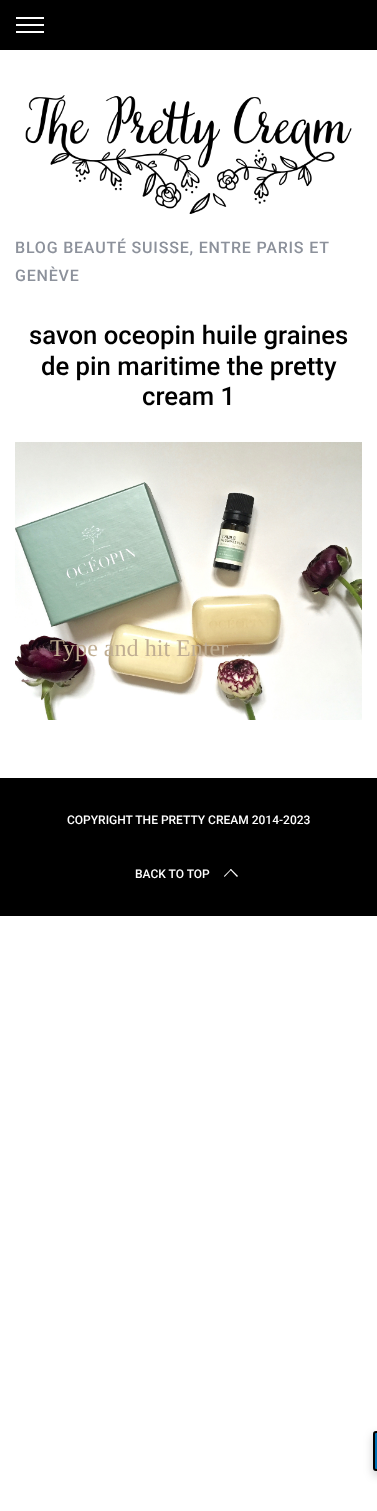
<svg xmlns="http://www.w3.org/2000/svg" xmlns:xlink="http://www.w3.org/1999/xlink" width="377" height="1511" viewBox="0 0 377 1511">
<style>
.cls-1{font:500 16px Roboto;letter-spacing:0.8px;fill:#8c919b}
.cls-2{font:500 25.7px Roboto;fill:#000000}
.cls-3{font:24.1px Liberation Serif;fill:#c0ae93}
.cls-4{font:500 12px Roboto;fill:#ffffff}
</style>
<rect width="100%" height="100%" fill="#ffffff"/>
<rect fill="#000000" x="0" y="0" width="377" height="50"/>
<rect fill="#ffffff" x="16" y="24" width="28" height="2"/>
<rect fill="#ffffff" x="16" y="17" width="28" height="2"/>
<rect fill="#ffffff" x="16" y="31" width="28" height="2"/>
<image xlink:href="image0.png" x="25" y="95" width="327" height="119"/>
<image xlink:href="image1.png" x="15" y="442" width="347" height="278"/>
<rect fill="#000000" x="0" y="778" width="377" height="138"/>
<path fill="#ffffff" d="M224 876L231 869L231.5 869.5L224.5 877Z"/>
<path fill="#ffffff" d="M230 869.5L231 869L238 876L237 877Z"/>
<rect fill="#000000" fill-opacity="0.2" filter="blur(5px)" x="373" y="1435" width="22" height="40" rx="3"/>
<path fill="#0073b7" stroke="#000000" stroke-width="2" d="M376 1432H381V1470H376C375 1470 374 1469 374 1468V1434C374 1433 375 1432 376 1432Z"/>
<text class="cls-1"><tspan x="15" y="253">BLOG BEAUTÉ SUISSE, ENTRE PARIS ET</tspan><tspan x="15" y="281">GENÈVE</tspan></text>
<text class="cls-2" x="29" y="344">savon oceopin huile graines</text>
<text class="cls-2" x="41" y="375">de pin maritime the pretty</text>
<text class="cls-2" x="142" y="405">cream 1</text>
<text class="cls-3" x="50" y="656">Type and hit Enter ...</text>
<text class="cls-4" x="67" y="824">COPYRIGHT THE PRETTY CREAM 2014-2023</text>
<text class="cls-4" x="135" y="878">BACK TO TOP</text>
</svg>
